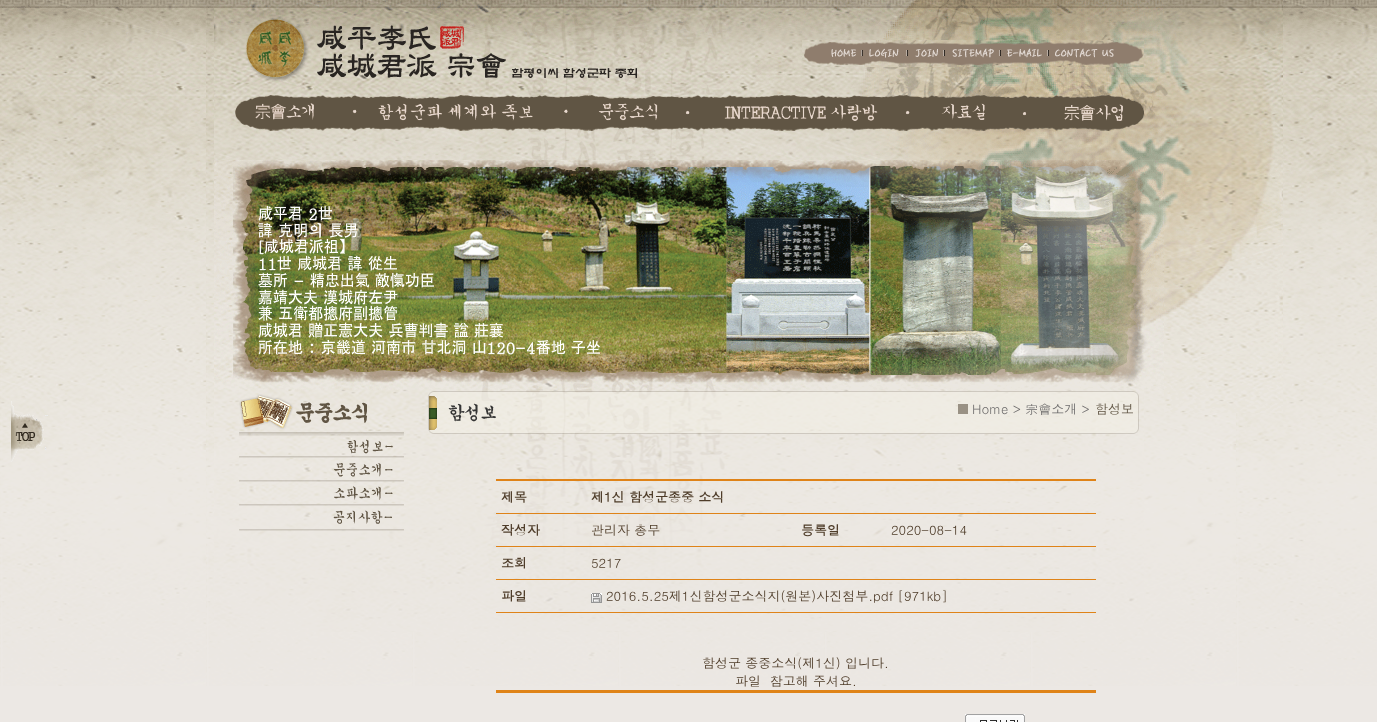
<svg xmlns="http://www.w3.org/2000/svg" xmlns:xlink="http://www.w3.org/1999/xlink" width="1377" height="722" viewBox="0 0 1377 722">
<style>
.cls-1{font:13px Dotum;fill:#6e6c6c}
.cls-2{font:13px Dotum;fill:#605544}
.cls-3{font:bold 13px Dotum;fill:#4e3c29}
.cls-4{font:13px Dotum;fill:#4e3c29}
</style>
<rect width="100%" height="100%" fill="#ece8e4"/>
<image xlink:href="image1.png" x="0" y="0" width="1377" height="686"/>
<image xlink:href="image0.png" x="11" y="401" width="37" height="61"/>
<image xlink:href="image2.png" x="1164" y="0" width="119" height="413"/>
<image xlink:href="image3.png" x="214" y="0" width="525" height="90"/>
<image xlink:href="image4.png" x="739" y="0" width="425" height="90"/>
<image xlink:href="image5.png" x="802" y="40" width="342" height="27"/>
<image xlink:href="image6.png" x="831" y="49" width="32" height="8"/>
<image xlink:href="image7.png" x="869" y="48" width="39" height="10"/>
<image xlink:href="image8.png" x="915" y="49" width="30" height="8"/>
<image xlink:href="image9.png" x="952" y="48" width="49" height="10"/>
<image xlink:href="image10.png" x="1007" y="48" width="42" height="10"/>
<image xlink:href="image11.png" x="1055" y="48" width="59" height="10"/>
<image xlink:href="image12.png" x="214" y="90" width="950" height="70"/>
<image xlink:href="image13.png" x="255" y="103" width="868" height="18"/>
<image xlink:href="image14.png" x="214" y="160" width="950" height="230"/>
<image xlink:href="image15.png" x="214" y="390" width="930" height="242"/>
<image xlink:href="image16.png" x="239" y="390" width="168" height="141"/>
<image xlink:href="image17.png" x="428" y="391" width="711" height="45"/>
<image xlink:href="image18.png" x="429" y="390" width="211" height="50"/>
<rect fill="#999184" x="958" y="404" width="10" height="10"/>
<rect fill="#df8318" x="496" y="479" width="600" height="2"/>
<rect fill="#df8318" x="496" y="513" width="600" height="1"/>
<rect fill="#df8318" x="496" y="546" width="600" height="1"/>
<rect fill="#df8318" x="496" y="579" width="600" height="1"/>
<image xlink:href="image19.png" x="591" y="593" width="11" height="10"/>
<rect fill="#df8318" x="496" y="612" width="600" height="1"/>
<rect fill="#df8318" x="496" y="690" width="600" height="3"/>
<image xlink:href="image20.png" x="965" y="714" width="60" height="8"/>
<text class="cls-1" x="972" y="414">Home &gt; 宗會소개 &gt;</text>
<text class="cls-2" x="1095" y="414">함성보</text>
<text class="cls-3" x="501" y="502">제목</text>
<text class="cls-3" x="591" y="502">제1신 함성군종중 소식</text>
<text class="cls-3" x="501" y="535">작성자</text>
<text class="cls-4" x="591" y="535">관리자 총무</text>
<text class="cls-3" x="801" y="535">등록일</text>
<text class="cls-4" x="891" y="535">2020-08-14</text>
<text class="cls-3" x="501" y="568">조회</text>
<text class="cls-4" x="591" y="568">5217</text>
<text class="cls-3" x="501" y="601">파일</text>
<text class="cls-4" x="606" y="601">2016.5.25제1신함성군소식지(원본)사진첨부.pdf [971kb]</text>
<text class="cls-4" x="702" y="668">함성군 종중소식(제1신) 입니다.</text>
<text class="cls-4" xml:space="preserve" x="735" y="686">파일  참고해 주셔요.</text>
</svg>
